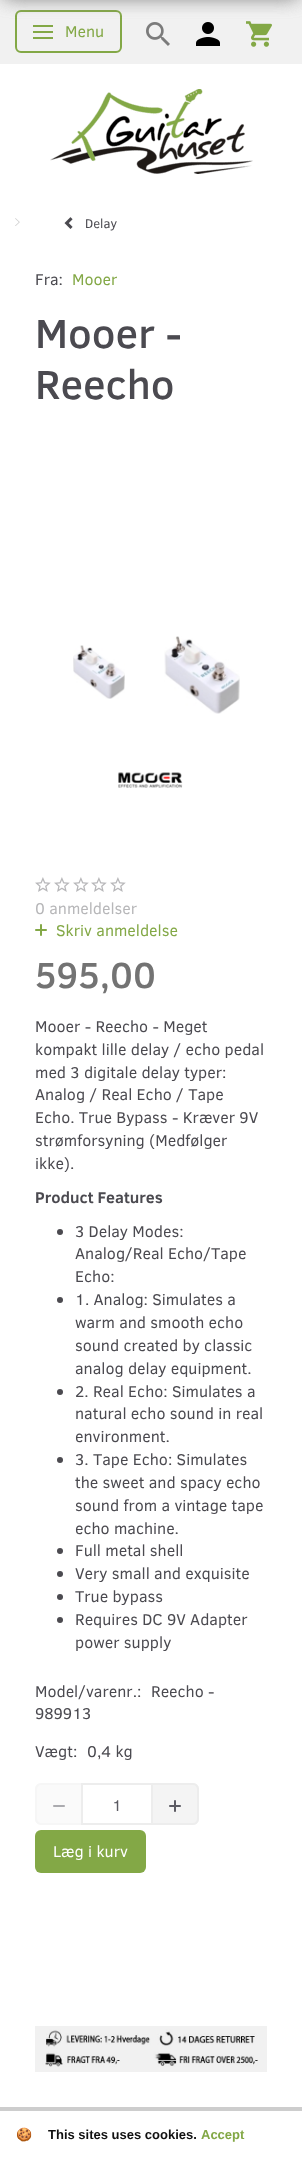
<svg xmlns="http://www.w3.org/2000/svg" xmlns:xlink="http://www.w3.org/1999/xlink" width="302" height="2159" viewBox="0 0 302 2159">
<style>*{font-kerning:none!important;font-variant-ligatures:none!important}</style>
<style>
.cls-1{font:16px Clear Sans;fill:#83a846}
.cls-2{font:13px Clear Sans;fill:#4b4a50}
.cls-3{font:16px Clear Sans;fill:#4b4a50}
.cls-4{font:500 41.5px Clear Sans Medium;fill:#4b4a50}
.cls-5{font:16px Clear Sans;fill:#b7b7b9}
.cls-6{font:500 37px Clear Sans Medium;fill:#737373}
.cls-7{font:bold 16px Clear Sans;fill:#4b4a50}
.cls-8{font:16px Clear Sans;fill:#5c5b63}
.cls-9{font:16px Clear Sans;fill:#ffffff}
.cls-10{font:bold 13px Noto Color Emoji;fill:#111111}
.cls-11{font:bold 13px Liberation Sans;fill:#111111}
.cls-12{font:bold 13px Liberation Sans;fill:#83a846}
</style>
<rect width="100%" height="100%" fill="#ffffff"/>
<rect fill="#f1f1f1" x="0" y="0" width="302" height="64"/>
<rect fill="none" stroke="#83a846" stroke-width="2" x="16" y="11" width="105" height="41" rx="5"/>
<rect fill="#83a846" x="33" y="25" width="20" height="2"/>
<image xlink:href="image0.png" x="146" y="22" width="24" height="24"/>
<image xlink:href="image1.png" x="196" y="22" width="24" height="24"/>
<image xlink:href="image2.png" x="246" y="21" width="26" height="26"/>
<rect fill="#949494" filter="blur(10px)" x="5" y="-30" width="292" height="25"/>
<rect fill="#949494" filter="blur(10px)" x="5" y="-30" width="292" height="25"/>
<rect fill="#83a846" x="33" y="31" width="20" height="2"/>
<rect fill="#83a846" x="33" y="37" width="20" height="2"/>
<image xlink:href="image3.png" x="50" y="89" width="203" height="85"/>
<image xlink:href="image4.png" x="15" y="218" width="5" height="8"/>
<image xlink:href="image5.png" x="64" y="217" width="9" height="12"/>
<image xlink:href="image6.png" x="73" y="645" width="52" height="54"/>
<image xlink:href="image7.png" x="164" y="636" width="76" height="78"/>
<image xlink:href="image8.png" x="118" y="772" width="65" height="16"/>
<image xlink:href="image9.png" x="35" y="877" width="16" height="15"/>
<image xlink:href="image9.png" x="54" y="877" width="16" height="15"/>
<image xlink:href="image9.png" x="73" y="877" width="16" height="15"/>
<image xlink:href="image9.png" x="91" y="877" width="16" height="15"/>
<image xlink:href="image9.png" x="110" y="877" width="16" height="15"/>
<image xlink:href="image10.png" x="35" y="924" width="12" height="12"/>
<circle fill="#4b4a50" cx="60" cy="1232" r="3"/>
<circle fill="#4b4a50" cx="60" cy="1300" r="3"/>
<circle fill="#4b4a50" cx="60" cy="1392" r="3"/>
<circle fill="#4b4a50" cx="60" cy="1460" r="3"/>
<circle fill="#4b4a50" cx="60" cy="1551" r="3"/>
<circle fill="#4b4a50" cx="60" cy="1574" r="3"/>
<circle fill="#4b4a50" cx="60" cy="1597" r="3"/>
<circle fill="#4b4a50" cx="60" cy="1620" r="3"/>
<path fill="#fafafa" d="M41 1783H81V1825H41C37.5 1825 35 1822.5 35 1819V1789C35 1785.5 37.5 1783 41 1783Z"/>
<path fill="#f6f6f6" fill-rule="evenodd" d="M41 1783H81V1825H41C38 1825 35 1822 35 1819V1789C35 1786 38 1783 41 1783ZM41 1785H81V1823H41C39 1823 37 1821 37 1819V1789C37 1787 39 1785 41 1785Z"/>
<image xlink:href="image11.png" x="53" y="1805" width="12" height="2"/>
<rect fill="none" stroke="#ededed" stroke-width="2" x="82" y="1784" width="70" height="40"/>
<path fill="#f4f4f4" d="M153 1783H193C196.5 1783 199 1785.5 199 1789V1819C199 1822.5 196.5 1825 193 1825H153Z"/>
<path fill="#ededed" fill-rule="evenodd" d="M153 1783H193C196 1783 199 1786 199 1789V1819C199 1822 196 1825 193 1825H153ZM153 1785H193C195 1785 197 1787 197 1789V1819C197 1821 195 1823 193 1823H153Z"/>
<image xlink:href="image12.png" x="169" y="1800" width="12" height="12"/>
<rect fill="#83a846" x="35" y="1830" width="111" height="43" rx="6"/>
<image xlink:href="image13.png" x="35" y="2026" width="232" height="46"/>
<rect fill="#cdcdcd" x="0" y="2107" width="302" height="4"/>
<text class="cls-1" x="65" y="37">Menu</text>
<text class="cls-2" x="85" y="228">Delay</text>
<text class="cls-3" x="35" y="285">Fra:</text>
<text class="cls-1" x="72" y="285">Mooer</text>
<text class="cls-4"><tspan x="35" y="348">Mooer -</tspan><tspan x="35" y="399">Reecho</tspan></text>
<text class="cls-5" x="35" y="914">0 anmeldelser</text>
<text class="cls-1" x="56" y="936">Skriv anmeldelse</text>
<text class="cls-6" x="35" y="988">595,00</text>
<text class="cls-3"><tspan x="35" y="1032">Mooer - Reecho - Meget</tspan><tspan x="35" y="1055">kompakt lille delay / echo pedal</tspan><tspan x="35" y="1078">med 3 digitale delay typer:</tspan><tspan x="35" y="1100">Analog / Real Echo / Tape</tspan><tspan x="35" y="1123">Echo. True Bypass - Kræver 9V</tspan><tspan x="35" y="1146">strømforsyning (Medfølger</tspan><tspan x="35" y="1169">ikke).</tspan></text>
<text class="cls-7" x="35" y="1203">Product Features</text>
<text class="cls-3"><tspan x="75" y="1237">3 Delay Modes:</tspan><tspan x="75" y="1259">Analog/Real Echo/Tape</tspan><tspan x="75" y="1282">Echo:</tspan><tspan x="75" y="1305">1. Analog: Simulates a</tspan><tspan x="75" y="1328">warm and smooth echo</tspan><tspan x="75" y="1351">sound created by classic</tspan><tspan x="75" y="1374">analog delay equipment.</tspan><tspan x="75" y="1397">2. Real Echo: Simulates a</tspan><tspan x="75" y="1419">natural echo sound in real</tspan><tspan x="75" y="1442">environment.</tspan><tspan x="75" y="1465">3. Tape Echo: Simulates</tspan><tspan x="75" y="1488">the sweet and spacy echo</tspan><tspan x="75" y="1511">sound from a vintage tape</tspan><tspan x="75" y="1534">echo machine.</tspan><tspan x="75" y="1556">Full metal shell</tspan><tspan x="75" y="1579">Very small and exquisite</tspan><tspan x="75" y="1602">True bypass</tspan><tspan x="75" y="1625">Requires DC 9V Adapter</tspan><tspan x="75" y="1648">power supply</tspan></text>
<text class="cls-3" x="35" y="1697">Model/varenr.:</text>
<text class="cls-3" x="151" y="1697">Reecho -</text>
<text class="cls-3" x="35" y="1719">989913</text>
<text class="cls-3" x="35" y="1757">Vægt:</text>
<text class="cls-3" x="87" y="1757">0,4 kg</text>
<text class="cls-8" x="112" y="1811">1</text>
<text class="cls-9" x="53" y="1857">Læg i kurv</text>
<text class="cls-10" x="16" y="2139">🍪</text>
<text class="cls-11" x="48" y="2139">This sites uses cookies.</text>
<text class="cls-12" x="201" y="2139">Accept</text>
</svg>
